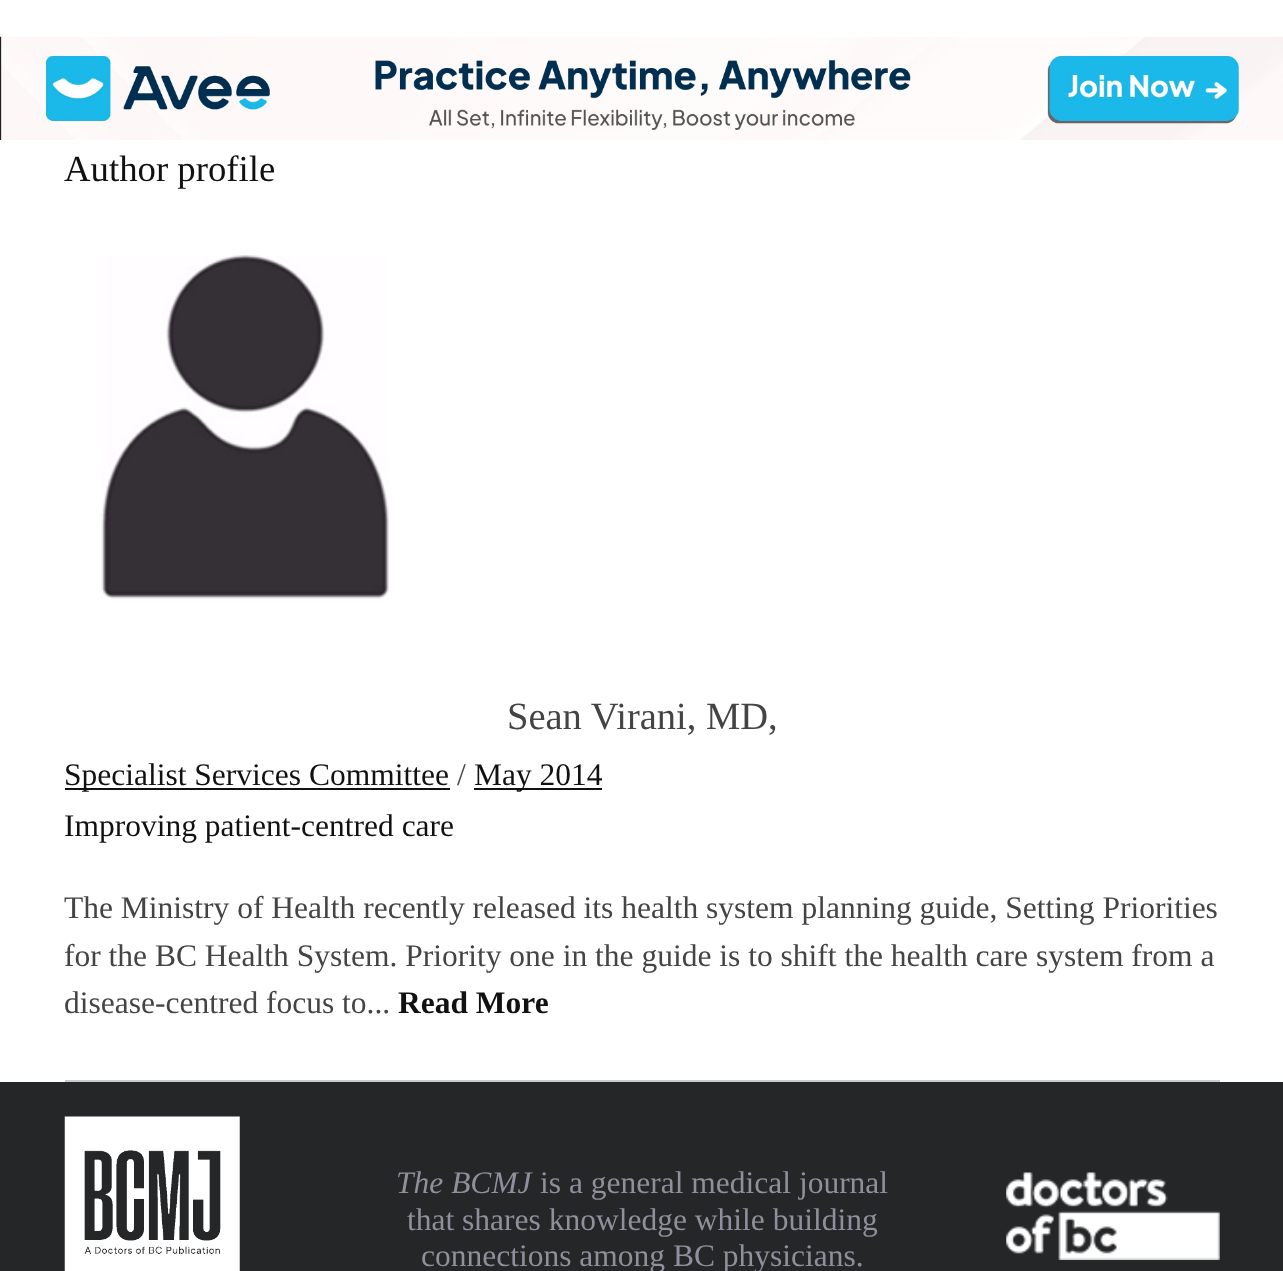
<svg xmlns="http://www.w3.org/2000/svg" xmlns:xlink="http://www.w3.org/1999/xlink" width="1283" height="1271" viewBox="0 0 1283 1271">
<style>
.cls-1{font:36.75px Liberation Serif;fill:#111111}
.cls-2{font:38.5px Liberation Serif;fill:#444444}
.cls-3{font:31.5px Liberation Serif;fill:#111111}
.cls-4{font:31.5px Liberation Serif;fill:#444444}
.cls-5{font:bold 31.5px Liberation Serif;fill:#111111}
.cls-6{font:italic 31.5px Liberation Serif;fill:#8c919b}
.cls-7{font:31.5px Liberation Serif;fill:#8c919b}
</style>
<rect width="100%" height="100%" fill="#ffffff"/>
<image xlink:href="image0.png" x="0" y="36" width="1283" height="104"/>
<image xlink:href="image1.png" x="101" y="255" width="288" height="344"/>
<rect fill="#cccccc" x="65" y="1080" width="1155" height="2"/>
<rect fill="#111111" x="65" y="788" width="385" height="2"/>
<rect fill="#111111" x="474" y="788" width="128" height="2"/>
<rect fill="#242628" x="0" y="1082" width="1283" height="189"/>
<image xlink:href="image2.png" x="64" y="1116" width="176" height="155"/>
<image xlink:href="image3.png" x="1006" y="1172" width="214" height="88"/>
<text class="cls-1" x="64" y="181">Author profile</text>
<text class="cls-2" x="507" y="729">Sean Virani, MD,</text>
<text class="cls-3" x="64" y="785">Specialist Services Committee</text>
<text class="cls-4" x="457" y="785">/</text>
<text class="cls-3" x="474" y="785">May 2014</text>
<text class="cls-3" x="64" y="836">Improving patient-centred care</text>
<text class="cls-4"><tspan x="64" y="918">The Ministry of Health recently released its health system planning guide, Setting Priorities</tspan><tspan x="64" y="966">for the BC Health System. Priority one in the guide is to shift the health care system from a</tspan><tspan x="64" y="1013">disease-centred focus to...</tspan></text>
<text class="cls-5" x="398" y="1013">Read More</text>
<text class="cls-6" x="396" y="1193">The BCMJ</text>
<text class="cls-7" x="540" y="1193">is a general medical journal</text>
<text class="cls-7" x="407" y="1230">that shares knowledge while building</text>
<text class="cls-7" x="421" y="1266">connections among BC physicians.</text>
</svg>
